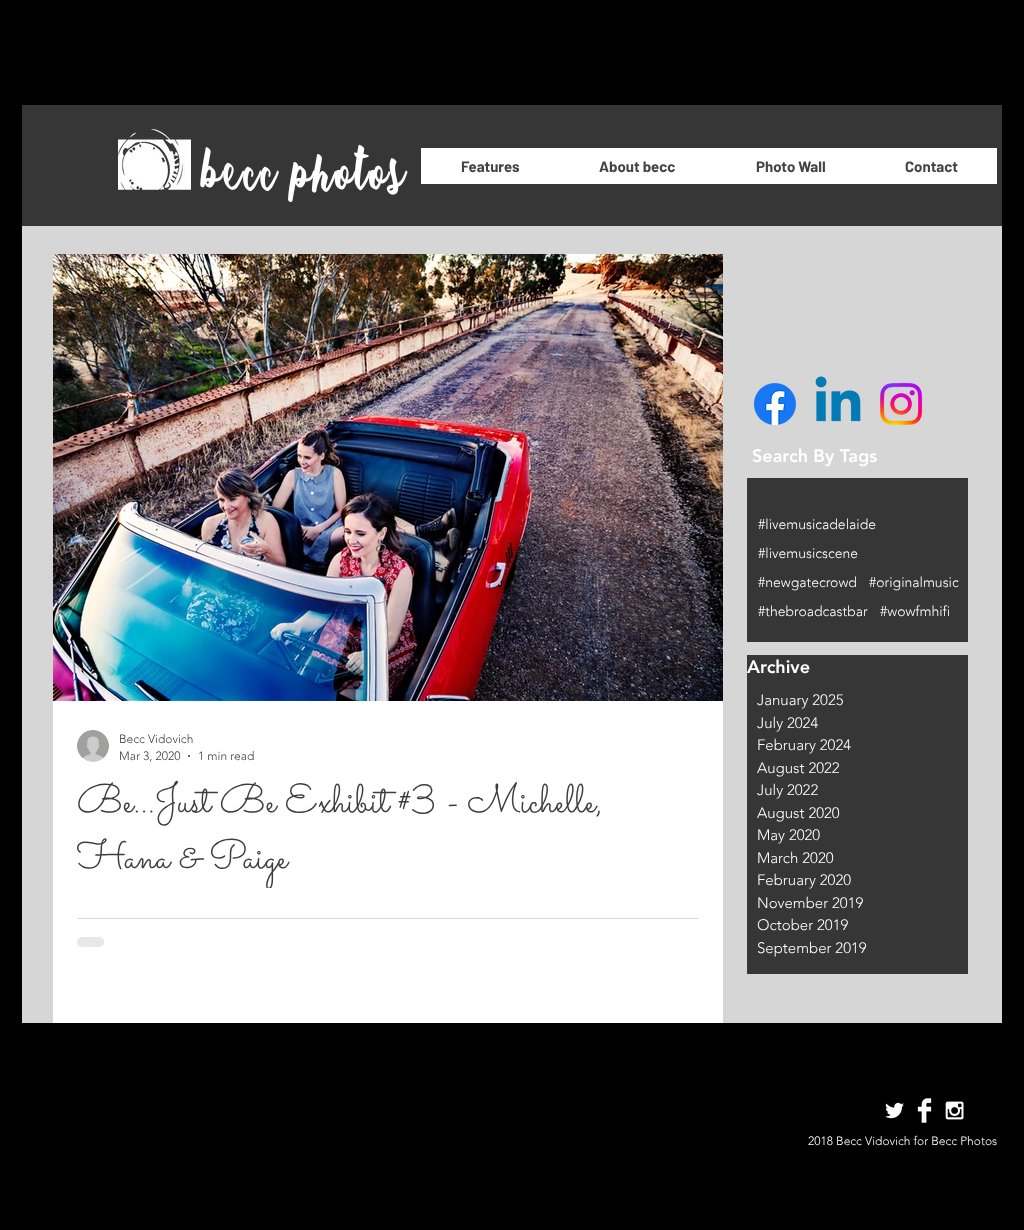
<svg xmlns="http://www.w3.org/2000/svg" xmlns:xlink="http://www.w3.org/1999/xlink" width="1024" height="1230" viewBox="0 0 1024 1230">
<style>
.cls-1{font:32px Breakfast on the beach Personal;letter-spacing:1.6px;fill:#ffffff}
.cls-2{font:bold 15px Barlow;fill:#444444}
.cls-3{font:900 18px 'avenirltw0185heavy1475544';fill:#ffffff}
.cls-4{font:300 14px 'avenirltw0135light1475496';fill:#ffffff}
.cls-5{font:300 12px 'avenirltw0135light1475496';fill:#3e3e3e}
.cls-6{font:40px Sacramento;fill:#3e3e3e}
.cls-7{font:300 15px 'avenirltw0135light1475496';fill:#ffffff}
.cls-8{font:300 12px 'avenirltw0135light1475496';fill:#ffffff}
</style>
<defs>
<clipPath id="clip1"><rect x="77" y="776" width="622" height="112"/></clipPath>
</defs>
<rect width="100%" height="100%" fill="#000000"/>
<rect fill="#363636" x="22" y="105" width="980" height="121"/>
<image xlink:href="image0.png" x="118" y="129" width="73" height="61"/>
<rect fill="#ffffff" x="421" y="148" width="576" height="36"/>
<rect fill="#d6d6d6" x="22" y="226" width="980" height="797"/>
<image xlink:href="image1.png" x="753" y="383" width="43" height="42"/>
<image xlink:href="image2.png" x="815" y="376" width="46" height="46"/>
<image xlink:href="image3.png" x="880" y="382" width="43" height="43"/>
<rect fill="#363636" x="747" y="478" width="221" height="164"/>
<rect fill="#363636" x="747" y="655" width="221" height="319"/>
<rect fill="#ffffff" x="53" y="701" width="670" height="322"/>
<image xlink:href="image4.png" x="53" y="254" width="670" height="447"/>
<image xlink:href="image5.png" x="77" y="730" width="32" height="32"/>
<circle fill="#3e3e3e" cx="189" cy="756" r="1"/>
<rect fill="#d8d8d8" x="77" y="918" width="622" height="1"/>
<rect fill="#e8e8e8" x="77" y="937" width="27" height="10" rx="5"/>
<image xlink:href="image6.png" x="885" y="1102" width="19" height="17"/>
<image xlink:href="image7.png" x="917" y="1098" width="15" height="25"/>
<image xlink:href="image8.png" x="945" y="1101" width="19" height="19"/>
<text class="cls-1" x="203" y="189">becc photos</text>
<text class="cls-2" x="461" y="172">Features</text>
<text class="cls-2" x="599" y="172">About becc</text>
<text class="cls-2" x="756" y="172">Photo Wall</text>
<text class="cls-2" x="905" y="172">Contact</text>
<text class="cls-3" x="752" y="462">Search By Tags</text>
<text class="cls-4" x="758" y="529">#livemusicadelaide</text>
<text class="cls-4" x="758" y="558">#livemusicscene</text>
<text class="cls-4" x="758" y="587">#newgatecrowd</text>
<text class="cls-4" x="869" y="587">#originalmusic</text>
<text class="cls-4" x="758" y="616">#thebroadcastbar</text>
<text class="cls-4" x="880" y="616">#wowfmhifi</text>
<text class="cls-3" x="747" y="673">Archive</text>
<text class="cls-5"><tspan x="119" y="743">Becc Vidovich</tspan><tspan x="119" y="760">Mar 3, 2020</tspan></text>
<text class="cls-5" x="198" y="760">1 min read</text>
<text class="cls-6" x="77" y="812">Be...Just Be Exhibit #3 - Michelle,</text>
<g clip-path="url(#clip1)">
<text class="cls-6" x="77" y="868">Hana &amp; Paige</text>
</g>
<text class="cls-7"><tspan x="757" y="705">January 2025</tspan><tspan x="757" y="728">July 2024</tspan><tspan x="757" y="750">February 2024</tspan><tspan x="757" y="773">August 2022</tspan><tspan x="757" y="795">July 2022</tspan><tspan x="757" y="818">August 2020</tspan><tspan x="757" y="840">May 2020</tspan><tspan x="757" y="863">March 2020</tspan><tspan x="757" y="885">February 2020</tspan><tspan x="757" y="908">November 2019</tspan><tspan x="757" y="930">October 2019</tspan><tspan x="757" y="953">September 2019</tspan></text>
<text class="cls-8" x="808" y="1145">2018 Becc Vidovich for Becc Photos</text>
</svg>
